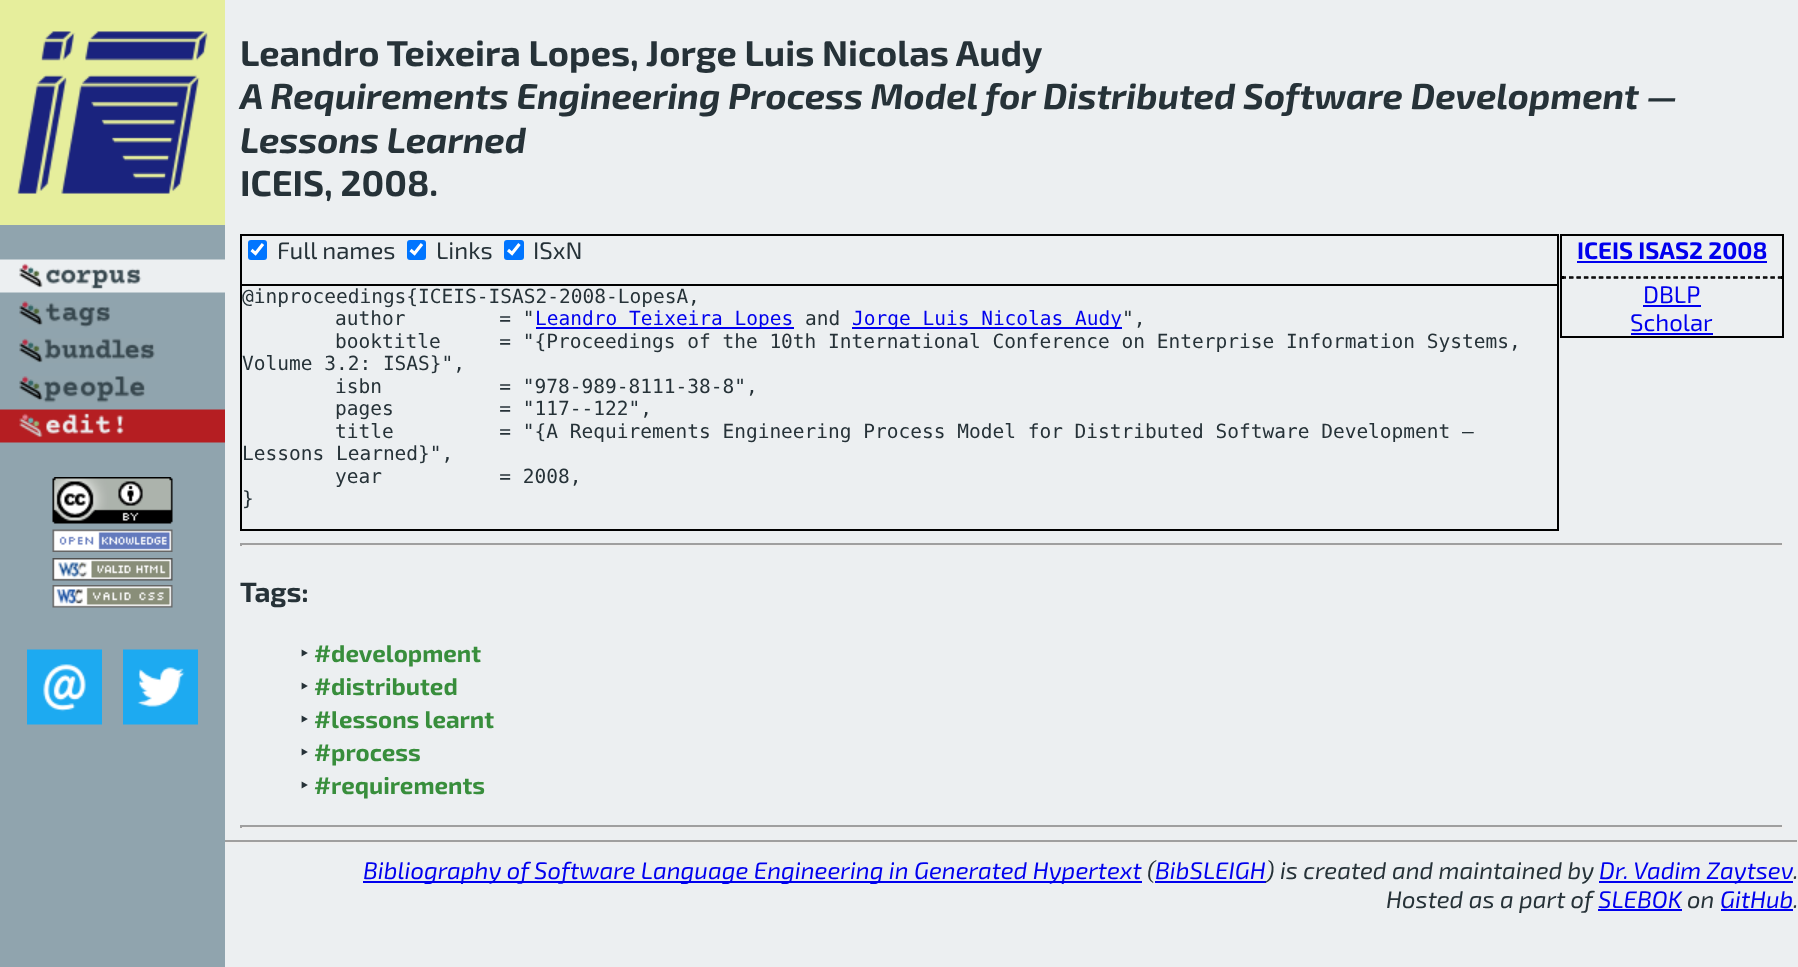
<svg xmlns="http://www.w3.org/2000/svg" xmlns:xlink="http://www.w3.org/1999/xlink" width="1798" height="967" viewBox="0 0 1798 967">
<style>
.cls-1{font:bold 36px 'Exo 2';fill:#263238}
.cls-2{font:italic bold 36px 'Exo 2';fill:#263238}
.cls-3{font:24px 'Exo 2';fill:#263238}
.cls-4{font:19.5px DejaVu Sans Mono;fill:#263238}
.cls-5{font:19.5px DejaVu Sans Mono;fill:#0000ee}
.cls-6{font:bold 24px 'Exo 2';fill:#0000ee}
.cls-7{font:24px 'Exo 2';fill:#0000ee}
.cls-8{font:bold 28px 'Exo 2';fill:#263238}
.cls-9{font:24px Noto Sans;fill:#263238}
.cls-10{font:bold 24px 'Exo 2';fill:#388e3c}
.cls-11{font:italic 24px 'Exo 2';fill:#0000ee}
.cls-12{font:italic 24px 'Exo 2';fill:#263238}
</style>
<rect width="100%" height="100%" fill="#eceff1"/>
<rect fill="#90a4ae" x="0" y="225" width="225" height="742"/>
<image xlink:href="image0.png" x="0" y="0" width="225" height="225"/>
<image xlink:href="image1.png" x="0" y="259" width="225" height="34"/>
<image xlink:href="image2.png" x="19" y="301" width="91" height="27"/>
<image xlink:href="image3.png" x="19" y="338" width="136" height="25"/>
<image xlink:href="image4.png" x="19" y="376" width="126" height="27"/>
<image xlink:href="image5.png" x="0" y="409" width="225" height="34"/>
<image xlink:href="image6.png" x="52" y="477" width="121" height="47"/>
<image xlink:href="image7.png" x="52" y="529" width="121" height="23"/>
<image xlink:href="image8.png" x="52" y="558" width="121" height="23"/>
<image xlink:href="image9.png" x="52" y="585" width="121" height="23"/>
<image xlink:href="image10.png" x="27" y="649" width="75" height="76"/>
<image xlink:href="image11.png" x="123" y="649" width="75" height="76"/>
<rect fill="none" stroke="#000000" stroke-width="2" x="241" y="235" width="1317" height="295"/>
<rect fill="#0075ff" x="248" y="240" width="19" height="20" rx="3"/>
<path fill="none" stroke="#ffffff" stroke-width="3.1" d="M251.5 250L255.5 253.5L263 244"/>
<rect fill="#0075ff" x="407" y="240" width="19" height="20" rx="3"/>
<path fill="none" stroke="#ffffff" stroke-width="3.1" d="M410.5 250L414.5 253.5L422 244"/>
<rect fill="#0075ff" x="504" y="240" width="20" height="20" rx="3"/>
<path fill="none" stroke="#ffffff" stroke-width="3.1" d="M508 250L512 253.5L519.5 244"/>
<rect fill="#000000" x="242" y="284" width="1315" height="2"/>
<rect fill="#0000ee" x="536" y="327" width="258" height="2"/>
<rect fill="#0000ee" x="852" y="327" width="270" height="2"/>
<rect fill="none" stroke="#000000" stroke-width="2" x="1561" y="235" width="222" height="102"/>
<rect fill="#0000ee" x="1577" y="261" width="190" height="2"/>
<path fill="none" stroke="#000000" stroke-width="1.5" stroke-dasharray="4.5 2.96" d="M1561.5 277H1782"/>
<rect fill="#000000" x="1781" y="276" width="1" height="3"/>
<path fill="none" stroke="#000000" stroke-width="1.5" stroke-dasharray="4.5 2.96" d="M1561.5 278H1782"/>
<rect fill="#000000" x="1562" y="276" width="2" height="3"/>
<rect fill="#0000ee" x="1643" y="305" width="58" height="2"/>
<rect fill="#0000ee" x="1631" y="333" width="82" height="2"/>
<rect fill="#9f9f9f" x="240" y="543" width="1544" height="2"/>
<rect fill="#eeeeee" x="1782" y="543" width="2" height="3"/>
<rect fill="#eeeeee" x="240" y="545" width="1544" height="2"/>
<rect fill="#9f9f9f" x="240" y="543" width="2" height="3"/>
<rect fill="#9f9f9f" x="240" y="825" width="1544" height="2"/>
<rect fill="#eeeeee" x="1782" y="825" width="2" height="3"/>
<rect fill="#eeeeee" x="240" y="827" width="1544" height="2"/>
<rect fill="#9f9f9f" x="240" y="825" width="2" height="3"/>
<rect fill="#9f9f9f" x="225" y="840" width="1573" height="2"/>
<rect fill="#eeeeee" x="1797" y="840" width="1" height="3"/>
<rect fill="#eeeeee" x="225" y="842" width="1573" height="2"/>
<rect fill="#0000ee" x="363" y="881" width="779" height="2"/>
<rect fill="#0000ee" x="1599" y="881" width="194" height="2"/>
<rect fill="#0000ee" x="1598" y="909" width="84" height="2"/>
<rect fill="#0000ee" x="1721" y="909" width="72" height="2"/>
<text class="cls-1" x="240" y="66">Leandro Teixeira Lopes, Jorge Luis Nicolas Audy</text>
<text class="cls-2" x="240" y="109">A Requirements Engineering Process Model</text>
<text class="cls-2" x="985" y="109">for Distributed Software Development —</text>
<text class="cls-2" x="240" y="153">Lessons Learned</text>
<text class="cls-1" x="240" y="196">ICEIS, 2008.</text>
<text class="cls-3" x="277" y="259">Full names</text>
<text class="cls-3" x="436" y="259">Links</text>
<text class="cls-3" x="533" y="259">ISxN</text>
<text class="cls-4" x="242" y="303">@inproceedings{ICEIS-ISAS2-2008-LopesA,</text>
<text class="cls-4" xml:space="preserve" x="335" y="325">author        = "</text>
<text class="cls-5" x="535" y="325">Leandro Teixeira Lopes</text>
<text class="cls-4" x="805" y="325">and</text>
<text class="cls-5" x="852" y="325">Jorge Luis Nicolas Audy</text>
<text class="cls-4" x="1122" y="325">",</text>
<text class="cls-4" xml:space="preserve" x="335" y="348">booktitle     = "{Proceedings of the 10th International Conference on Enterprise Information Systems,</text>
<text class="cls-4" x="242" y="370">Volume 3.2: ISAS}",</text>
<text class="cls-4" xml:space="preserve"><tspan x="335" y="393">isbn          = "978-989-8111-38-8",</tspan><tspan x="335" y="415">pages         = "117--122",</tspan><tspan x="335" y="438">title         = "{A Requirements Engineering Process Model for Distributed Software Development —</tspan></text>
<text class="cls-4" x="242" y="460">Lessons Learned}",</text>
<text class="cls-4" xml:space="preserve" x="335" y="483">year          = 2008,</text>
<text class="cls-4" x="242" y="505">}</text>
<text class="cls-6" x="1577" y="259">ICEIS ISAS2 2008</text>
<text class="cls-7" x="1643" y="303">DBLP</text>
<text class="cls-7" x="1630" y="331">Scholar</text>
<text class="cls-8" x="240" y="602">Tags:</text>
<text class="cls-9" x="300" y="662">‣</text>
<text class="cls-10" x="314" y="662">#development</text>
<text class="cls-9" x="300" y="695">‣</text>
<text class="cls-10" x="314" y="695">#distributed</text>
<text class="cls-9" x="300" y="728">‣</text>
<text class="cls-10" x="314" y="728">#lessons learnt</text>
<text class="cls-9" x="300" y="761">‣</text>
<text class="cls-10" x="314" y="761">#process</text>
<text class="cls-9" x="300" y="794">‣</text>
<text class="cls-10" x="314" y="794">#requirements</text>
<text class="cls-11" x="363" y="879">Bibliography of Software Language Engineering in Generated Hypertext</text>
<text class="cls-12" x="1147" y="879">(</text>
<text class="cls-11" x="1155" y="879">BibSLEIGH</text>
<rect fill="#0000ee" x="1155" y="881" width="111" height="2"/>
<text class="cls-12" x="1266" y="879">) is created and maintained by</text>
<text class="cls-11" x="1599" y="879">Dr. Vadim Zaytsev</text>
<text class="cls-12" x="1793" y="879">.</text>
<text class="cls-12" x="1386" y="908">Hosted as a part of</text>
<text class="cls-11" x="1598" y="908">SLEBOK</text>
<text class="cls-12" x="1687" y="908">on</text>
<text class="cls-11" x="1720" y="908">GitHub</text>
<text class="cls-12" x="1793" y="908">.</text>
</svg>
